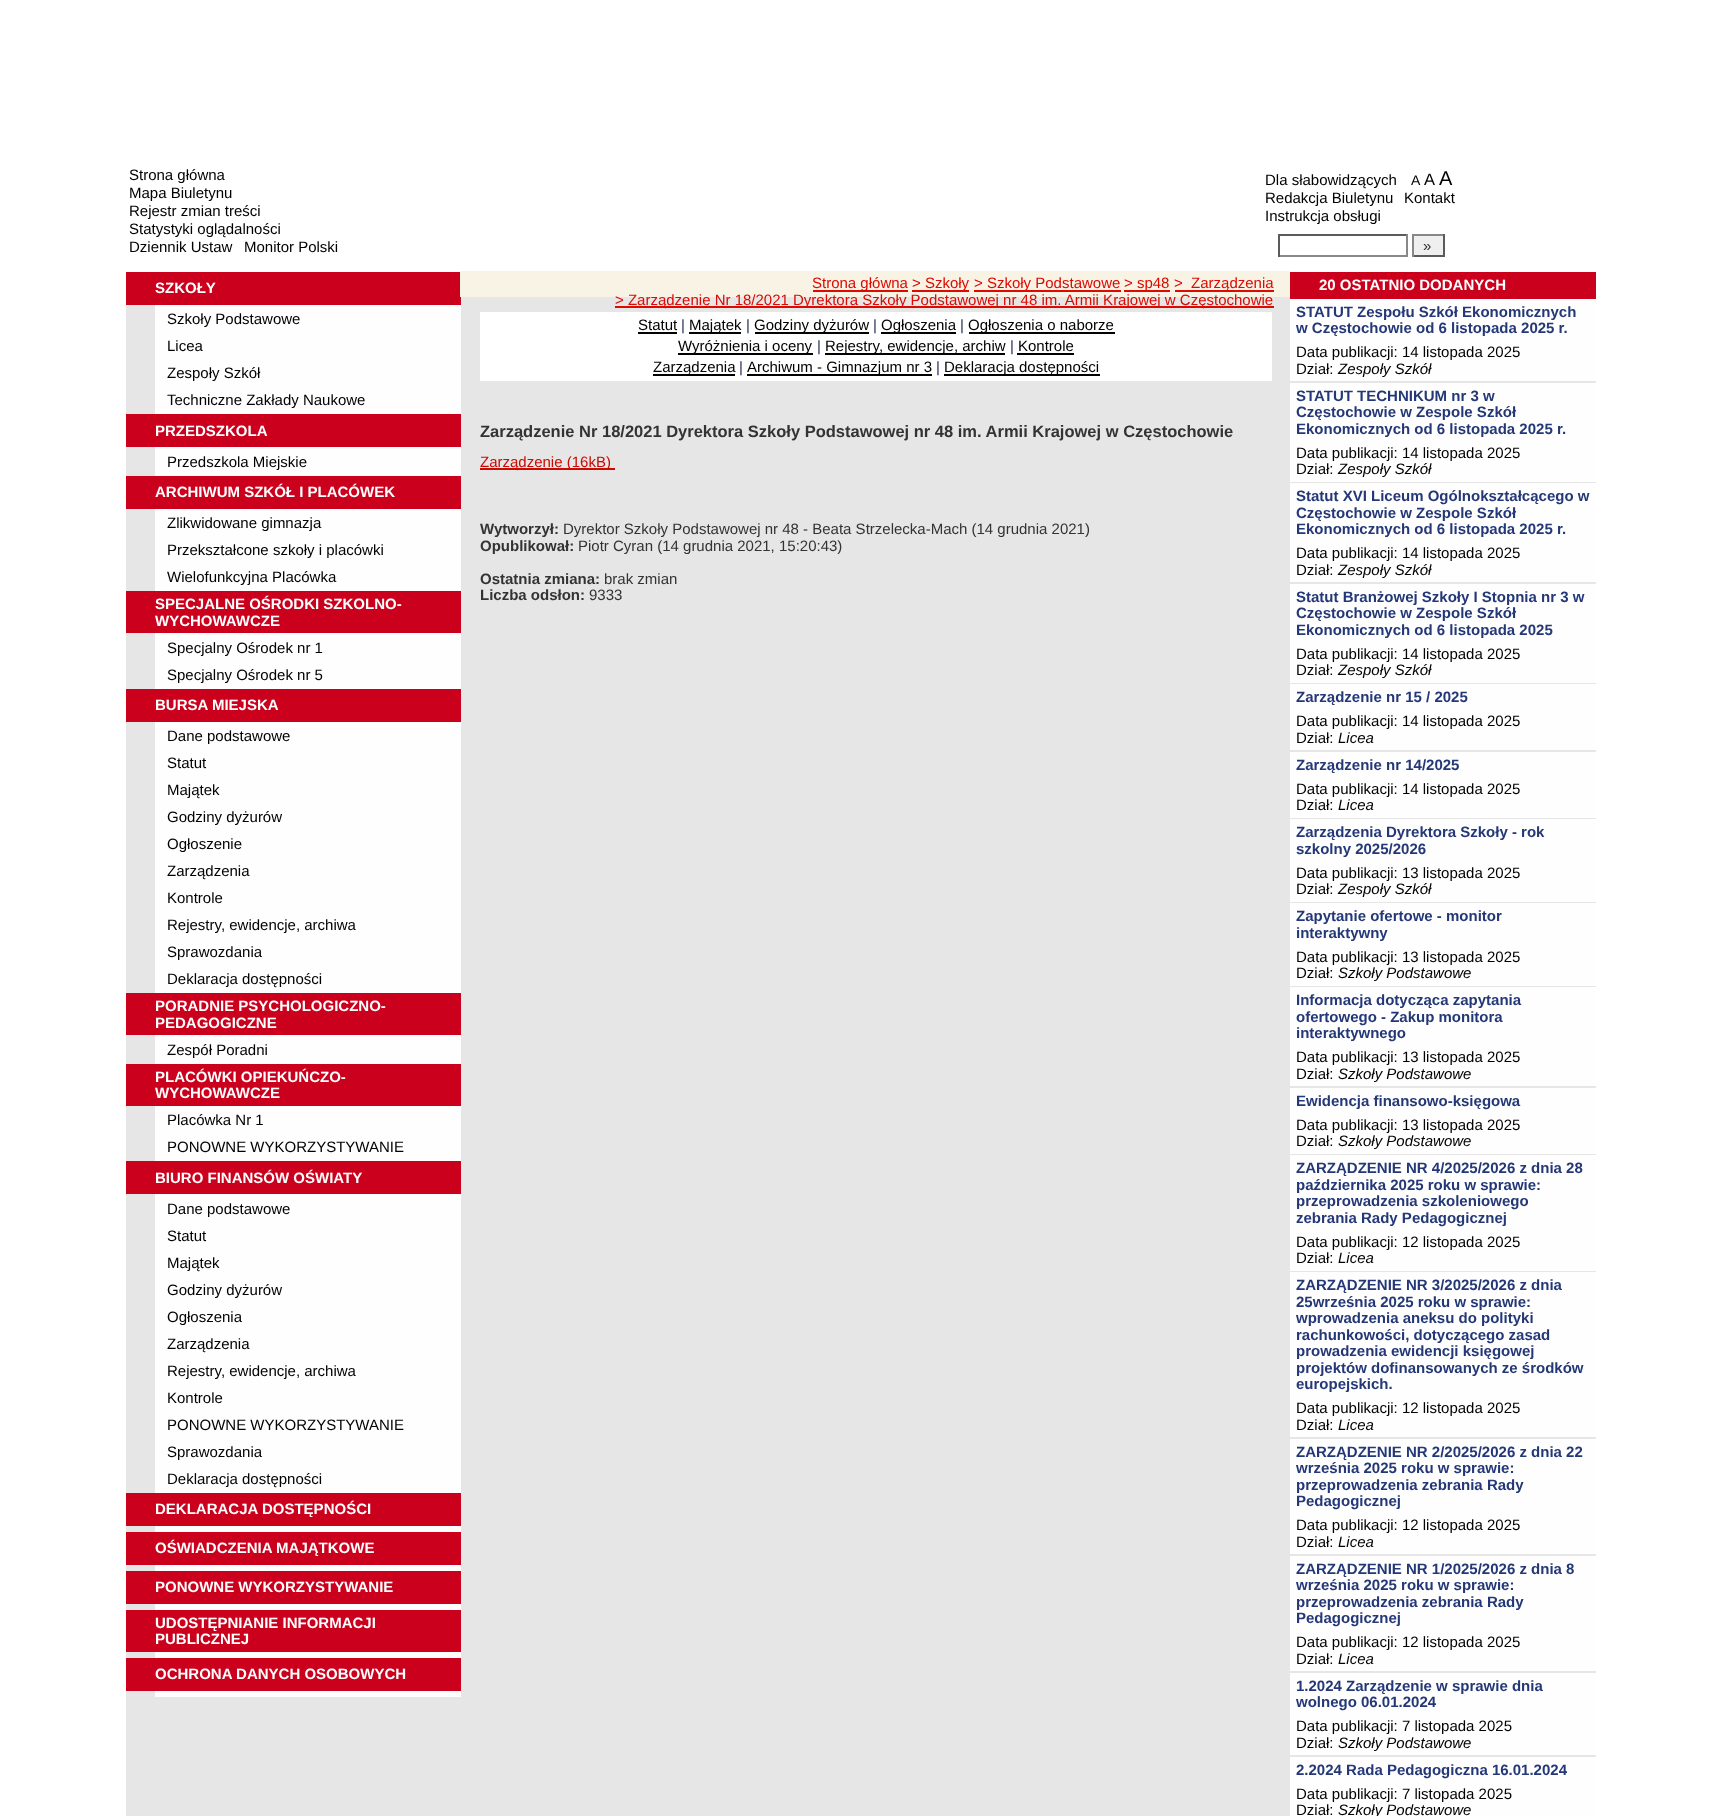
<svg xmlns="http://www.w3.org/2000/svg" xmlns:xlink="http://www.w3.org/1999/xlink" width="1721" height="1816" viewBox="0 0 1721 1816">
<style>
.cls-1{font:15px Liberation Sans;fill:#000000}
.cls-2{font:14px Liberation Sans;fill:#000000}
.cls-3{font:16.5px Liberation Sans;fill:#000000}
.cls-4{font:20px Liberation Sans;fill:#000000}
.cls-5{font:15px Liberation Sans;fill:#333333}
.cls-6{font:bold 15px Liberation Sans;fill:#ffffff}
.cls-7{font:15px Liberation Sans;fill:#dc0a01}
.cls-8{font:15px Liberation Sans;fill:#1e2557}
.cls-9{font:bold 16.5px Liberation Sans;fill:#333333}
.cls-10{font:15px Liberation Sans;fill:#cc0a01}
.cls-11{font:bold 15px Liberation Sans;fill:#333333}
.cls-12{font:bold 15px Liberation Sans;fill:#243877}
.cls-13{font:italic 15px Liberation Sans;fill:#000000}
</style>
<rect width="100%" height="100%" fill="#ffffff"/>
<rect fill="#5b5b5b" x="1278" y="234" width="129" height="2"/>
<rect fill="#888888" x="1406" y="234" width="2" height="23"/>
<rect fill="#888888" x="1278" y="255" width="129" height="2"/>
<rect fill="#5b5b5b" x="1278" y="234" width="2" height="23"/>
<rect fill="#efefef" x="1414" y="236" width="29" height="19"/>
<rect fill="#888888" x="1412" y="234" width="33" height="2"/>
<rect fill="#5b5b5b" x="1443" y="234" width="2" height="23"/>
<rect fill="#5b5b5b" x="1412" y="255" width="33" height="2"/>
<rect fill="#888888" x="1412" y="234" width="2" height="23"/>
<rect fill="#e6e6e6" x="126" y="297" width="1470" height="1519"/>
<rect fill="#cb001c" x="126" y="272" width="335" height="33"/>
<rect fill="#fefefe" x="155" y="305" width="306" height="109"/>
<rect fill="#cb001c" x="126" y="414" width="335" height="33"/>
<rect fill="#fefefe" x="155" y="447" width="306" height="29"/>
<rect fill="#cb001c" x="126" y="476" width="335" height="33"/>
<rect fill="#fefefe" x="155" y="509" width="306" height="82"/>
<rect fill="#cb001c" x="126" y="591" width="335" height="42"/>
<rect fill="#fefefe" x="155" y="633" width="306" height="56"/>
<rect fill="#cb001c" x="126" y="689" width="335" height="33"/>
<rect fill="#fefefe" x="155" y="722" width="306" height="271"/>
<rect fill="#cb001c" x="126" y="993" width="335" height="42"/>
<rect fill="#fefefe" x="155" y="1035" width="306" height="29"/>
<rect fill="#cb001c" x="126" y="1064" width="335" height="42"/>
<rect fill="#fefefe" x="155" y="1106" width="306" height="55"/>
<rect fill="#cb001c" x="126" y="1161" width="335" height="33"/>
<rect fill="#fefefe" x="155" y="1194" width="306" height="299"/>
<rect fill="#cb001c" x="126" y="1493" width="335" height="33"/>
<rect fill="#fefefe" x="155" y="1526" width="306" height="6"/>
<rect fill="#cb001c" x="126" y="1532" width="335" height="33"/>
<rect fill="#fefefe" x="155" y="1565" width="306" height="6"/>
<rect fill="#cb001c" x="126" y="1571" width="335" height="33"/>
<rect fill="#fefefe" x="155" y="1604" width="306" height="6"/>
<rect fill="#cb001c" x="126" y="1610" width="335" height="42"/>
<rect fill="#fefefe" x="155" y="1652" width="306" height="6"/>
<rect fill="#cb001c" x="126" y="1658" width="335" height="33"/>
<rect fill="#fefefe" x="155" y="1691" width="306" height="6"/>
<rect fill="#f8f3e5" x="460" y="271" width="830" height="26"/>
<rect fill="#dc0a01" x="813" y="290" width="95" height="2"/>
<rect fill="#dc0a01" x="912" y="290" width="57" height="2"/>
<rect fill="#dc0a01" x="974" y="290" width="147" height="2"/>
<rect fill="#dc0a01" x="1124" y="290" width="46" height="2"/>
<rect fill="#dc0a01" x="1175" y="290" width="99" height="2"/>
<rect fill="#dc0a01" x="615" y="306" width="659" height="2"/>
<rect fill="#ffffff" x="480" y="312" width="792" height="69"/>
<rect fill="#000000" x="638" y="332" width="39" height="2"/>
<rect fill="#000000" x="689" y="332" width="52" height="2"/>
<rect fill="#000000" x="755" y="332" width="114" height="2"/>
<rect fill="#000000" x="881" y="332" width="75" height="2"/>
<rect fill="#000000" x="969" y="332" width="146" height="2"/>
<rect fill="#000000" x="678" y="353" width="135" height="2"/>
<rect fill="#000000" x="825" y="353" width="180" height="2"/>
<rect fill="#000000" x="1017" y="353" width="57" height="2"/>
<rect fill="#000000" x="653" y="374" width="82" height="2"/>
<rect fill="#000000" x="747" y="374" width="185" height="2"/>
<rect fill="#000000" x="944" y="374" width="156" height="2"/>
<rect fill="#cc0a01" x="480" y="468" width="135" height="2"/>
<rect fill="#cb001c" x="1290" y="272" width="306" height="27"/>
<rect fill="#fefefe" x="1290" y="299" width="306" height="82"/>
<rect fill="#fefefe" x="1290" y="383" width="306" height="99"/>
<rect fill="#fefefe" x="1290" y="483" width="306" height="99"/>
<rect fill="#fefefe" x="1290" y="584" width="306" height="99"/>
<rect fill="#fefefe" x="1290" y="684" width="306" height="66"/>
<rect fill="#fefefe" x="1290" y="752" width="306" height="66"/>
<rect fill="#fefefe" x="1290" y="819" width="306" height="83"/>
<rect fill="#fefefe" x="1290" y="903" width="306" height="83"/>
<rect fill="#fefefe" x="1290" y="987" width="306" height="99"/>
<rect fill="#fefefe" x="1290" y="1088" width="306" height="66"/>
<rect fill="#fefefe" x="1290" y="1155" width="306" height="116"/>
<rect fill="#fefefe" x="1290" y="1272" width="306" height="165"/>
<rect fill="#fefefe" x="1290" y="1439" width="306" height="115"/>
<rect fill="#fefefe" x="1290" y="1556" width="306" height="115"/>
<rect fill="#fefefe" x="1290" y="1673" width="306" height="82"/>
<rect fill="#fefefe" x="1290" y="1757" width="306" height="59"/>
<text class="cls-1"><tspan x="129" y="180">Strona główna</tspan><tspan x="129" y="198">Mapa Biuletynu</tspan><tspan x="129" y="216">Rejestr zmian treści</tspan><tspan x="129" y="234">Statystyki oglądalności</tspan><tspan x="129" y="252">Dziennik Ustaw</tspan></text>
<text class="cls-1" x="244" y="252">Monitor Polski</text>
<text class="cls-1" x="1265" y="185">Dla słabowidzących</text>
<text class="cls-2" x="1411" y="185">A</text>
<text class="cls-3" x="1424" y="185">A</text>
<text class="cls-4" x="1439" y="185">A</text>
<text class="cls-1" x="1265" y="203">Redakcja Biuletynu</text>
<text class="cls-1" x="1404" y="203">Kontakt</text>
<text class="cls-1" x="1265" y="221">Instrukcja obsługi</text>
<text class="cls-5" x="1423" y="251">»</text>
<text class="cls-6" x="155" y="293">SZKOŁY</text>
<text class="cls-1"><tspan x="167" y="324">Szkoły Podstawowe</tspan><tspan x="167" y="351">Licea</tspan><tspan x="167" y="378">Zespoły Szkół</tspan><tspan x="167" y="405">Techniczne Zakłady Naukowe</tspan></text>
<text class="cls-6" x="155" y="436">PRZEDSZKOLA</text>
<text class="cls-1" x="167" y="467">Przedszkola Miejskie</text>
<text class="cls-6" x="155" y="497">ARCHIWUM SZKÓŁ I PLACÓWEK</text>
<text class="cls-1"><tspan x="167" y="528">Zlikwidowane gimnazja</tspan><tspan x="167" y="555">Przekształcone szkoły i placówki</tspan><tspan x="167" y="582">Wielofunkcyjna Placówka</tspan></text>
<text class="cls-6"><tspan x="155" y="609">SPECJALNE OŚRODKI SZKOLNO-</tspan><tspan x="155" y="626">WYCHOWAWCZE</tspan></text>
<text class="cls-1"><tspan x="167" y="653">Specjalny Ośrodek nr 1</tspan><tspan x="167" y="680">Specjalny Ośrodek nr 5</tspan></text>
<text class="cls-6" x="155" y="710">BURSA MIEJSKA</text>
<text class="cls-1"><tspan x="167" y="741">Dane podstawowe</tspan><tspan x="167" y="768">Statut</tspan><tspan x="167" y="795">Majątek</tspan><tspan x="167" y="822">Godziny dyżurów</tspan><tspan x="167" y="849">Ogłoszenie</tspan><tspan x="167" y="876">Zarządzenia</tspan><tspan x="167" y="903">Kontrole</tspan><tspan x="167" y="930">Rejestry, ewidencje, archiwa</tspan><tspan x="167" y="957">Sprawozdania</tspan><tspan x="167" y="984">Deklaracja dostępności</tspan></text>
<text class="cls-6"><tspan x="155" y="1011">PORADNIE PSYCHOLOGICZNO-</tspan><tspan x="155" y="1028">PEDAGOGICZNE</tspan></text>
<text class="cls-1" x="167" y="1055">Zespół Poradni</text>
<text class="cls-6"><tspan x="155" y="1082">PLACÓWKI OPIEKUŃCZO-</tspan><tspan x="155" y="1098">WYCHOWAWCZE</tspan></text>
<text class="cls-1"><tspan x="167" y="1125">Placówka Nr 1</tspan><tspan x="167" y="1152">PONOWNE WYKORZYSTYWANIE</tspan></text>
<text class="cls-6" x="155" y="1183">BIURO FINANSÓW OŚWIATY</text>
<text class="cls-1"><tspan x="167" y="1214">Dane podstawowe</tspan><tspan x="167" y="1241">Statut</tspan><tspan x="167" y="1268">Majątek</tspan><tspan x="167" y="1295">Godziny dyżurów</tspan><tspan x="167" y="1322">Ogłoszenia</tspan><tspan x="167" y="1349">Zarządzenia</tspan><tspan x="167" y="1376">Rejestry, ewidencje, archiwa</tspan><tspan x="167" y="1403">Kontrole</tspan><tspan x="167" y="1430">PONOWNE WYKORZYSTYWANIE</tspan><tspan x="167" y="1457">Sprawozdania</tspan><tspan x="167" y="1484">Deklaracja dostępności</tspan></text>
<text class="cls-6" x="155" y="1514">DEKLARACJA DOSTĘPNOŚCI</text>
<text class="cls-6" x="155" y="1553">OŚWIADCZENIA MAJĄTKOWE</text>
<text class="cls-6" x="155" y="1592">PONOWNE WYKORZYSTYWANIE</text>
<text class="cls-6"><tspan x="155" y="1628">UDOSTĘPNIANIE INFORMACJI</tspan><tspan x="155" y="1644">PUBLICZNEJ</tspan></text>
<text class="cls-6" x="155" y="1679">OCHRONA DANYCH OSOBOWYCH</text>
<text class="cls-7" x="812" y="288">Strona główna</text>
<text class="cls-7" x="912" y="288">&gt; Szkoły</text>
<text class="cls-7" x="974" y="288">&gt; Szkoły Podstawowe</text>
<text class="cls-7" x="1124" y="288">&gt; sp48</text>
<text class="cls-7" xml:space="preserve" x="1174" y="288">&gt;  Zarządzenia</text>
<text class="cls-7" x="615" y="305">&gt; Zarządzenie Nr 18/2021 Dyrektora Szkoły Podstawowej nr 48 im. Armii Krajowej w Częstochowie</text>
<text class="cls-1" x="638" y="330">Statut</text>
<text class="cls-8" x="681" y="330">|</text>
<text class="cls-1" x="689" y="330">Majątek</text>
<text class="cls-8" x="746" y="330">|</text>
<text class="cls-1" x="754" y="330">Godziny dyżurów</text>
<text class="cls-8" x="873" y="330">|</text>
<text class="cls-1" x="881" y="330">Ogłoszenia</text>
<text class="cls-8" x="960" y="330">|</text>
<text class="cls-1" x="968" y="330">Ogłoszenia o naborze</text>
<text class="cls-1" x="678" y="351">Wyróżnienia i oceny</text>
<text class="cls-8" x="817" y="351">|</text>
<text class="cls-1" x="825" y="351">Rejestry, ewidencje, archiw</text>
<text class="cls-8" x="1010" y="351">|</text>
<text class="cls-1" x="1018" y="351">Kontrole</text>
<text class="cls-1" x="653" y="372">Zarządzenia</text>
<text class="cls-8" x="739" y="372">|</text>
<text class="cls-1" x="747" y="372">Archiwum - Gimnazjum nr 3</text>
<text class="cls-8" x="936" y="372">|</text>
<text class="cls-1" x="944" y="372">Deklaracja dostępności</text>
<text class="cls-9" x="480" y="437">Zarządzenie Nr 18/2021 Dyrektora Szkoły Podstawowej nr 48 im. Armii Krajowej w Częstochowie</text>
<text class="cls-10" x="480" y="467">Zarządzenie (16kB)</text>
<text class="cls-11" x="480" y="534">Wytworzył:</text>
<text class="cls-5" x="563" y="534">Dyrektor Szkoły Podstawowej nr 48 - Beata Strzelecka-Mach (14 grudnia 2021)</text>
<text class="cls-11" x="480" y="551">Opublikował:</text>
<text class="cls-5" x="578" y="551">Piotr Cyran (14 grudnia 2021, 15:20:43)</text>
<text class="cls-11" x="480" y="584">Ostatnia zmiana:</text>
<text class="cls-5" x="604" y="584">brak zmian</text>
<text class="cls-11" x="480" y="600">Liczba odsłon:</text>
<text class="cls-5" x="589" y="600">9333</text>
<text class="cls-6" x="1319" y="290">20 OSTATNIO DODANYCH</text>
<text class="cls-12"><tspan x="1296" y="317">STATUT Zespołu Szkół Ekonomicznych</tspan><tspan x="1296" y="333">w Częstochowie od 6 listopada 2025 r.</tspan></text>
<text class="cls-1"><tspan x="1296" y="357">Data publikacji: 14 listopada 2025</tspan><tspan x="1296" y="374">Dział:</tspan></text>
<text class="cls-13" x="1338" y="374">Zespoły Szkół</text>
<text class="cls-12"><tspan x="1296" y="401">STATUT TECHNIKUM nr 3 w</tspan><tspan x="1296" y="417">Częstochowie w Zespole Szkół</tspan><tspan x="1296" y="434">Ekonomicznych od 6 listopada 2025 r.</tspan></text>
<text class="cls-1"><tspan x="1296" y="458">Data publikacji: 14 listopada 2025</tspan><tspan x="1296" y="474">Dział:</tspan></text>
<text class="cls-13" x="1338" y="474">Zespoły Szkół</text>
<text class="cls-12"><tspan x="1296" y="501">Statut XVI Liceum Ogólnokształcącego w</tspan><tspan x="1296" y="518">Częstochowie w Zespole Szkół</tspan><tspan x="1296" y="534">Ekonomicznych od 6 listopada 2025 r.</tspan></text>
<text class="cls-1"><tspan x="1296" y="558">Data publikacji: 14 listopada 2025</tspan><tspan x="1296" y="575">Dział:</tspan></text>
<text class="cls-13" x="1338" y="575">Zespoły Szkół</text>
<text class="cls-12"><tspan x="1296" y="602">Statut Branżowej Szkoły I Stopnia nr 3 w</tspan><tspan x="1296" y="618">Częstochowie w Zespole Szkół</tspan><tspan x="1296" y="635">Ekonomicznych od 6 listopada 2025</tspan></text>
<text class="cls-1"><tspan x="1296" y="659">Data publikacji: 14 listopada 2025</tspan><tspan x="1296" y="675">Dział:</tspan></text>
<text class="cls-13" x="1338" y="675">Zespoły Szkół</text>
<text class="cls-12" x="1296" y="702">Zarządzenie nr 15 / 2025</text>
<text class="cls-1"><tspan x="1296" y="726">Data publikacji: 14 listopada 2025</tspan><tspan x="1296" y="743">Dział:</tspan></text>
<text class="cls-13" x="1338" y="743">Licea</text>
<text class="cls-12" x="1296" y="770">Zarządzenie nr 14/2025</text>
<text class="cls-1"><tspan x="1296" y="794">Data publikacji: 14 listopada 2025</tspan><tspan x="1296" y="810">Dział:</tspan></text>
<text class="cls-13" x="1338" y="810">Licea</text>
<text class="cls-12"><tspan x="1296" y="837">Zarządzenia Dyrektora Szkoły - rok</tspan><tspan x="1296" y="854">szkolny 2025/2026</tspan></text>
<text class="cls-1"><tspan x="1296" y="878">Data publikacji: 13 listopada 2025</tspan><tspan x="1296" y="894">Dział:</tspan></text>
<text class="cls-13" x="1338" y="894">Zespoły Szkół</text>
<text class="cls-12"><tspan x="1296" y="921">Zapytanie ofertowe - monitor</tspan><tspan x="1296" y="938">interaktywny</tspan></text>
<text class="cls-1"><tspan x="1296" y="962">Data publikacji: 13 listopada 2025</tspan><tspan x="1296" y="978">Dział:</tspan></text>
<text class="cls-13" x="1338" y="978">Szkoły Podstawowe</text>
<text class="cls-12"><tspan x="1296" y="1005">Informacja dotycząca zapytania</tspan><tspan x="1296" y="1022">ofertowego - Zakup monitora</tspan><tspan x="1296" y="1038">interaktywnego</tspan></text>
<text class="cls-1"><tspan x="1296" y="1062">Data publikacji: 13 listopada 2025</tspan><tspan x="1296" y="1079">Dział:</tspan></text>
<text class="cls-13" x="1338" y="1079">Szkoły Podstawowe</text>
<text class="cls-12" x="1296" y="1106">Ewidencja finansowo-księgowa</text>
<text class="cls-1"><tspan x="1296" y="1130">Data publikacji: 13 listopada 2025</tspan><tspan x="1296" y="1146">Dział:</tspan></text>
<text class="cls-13" x="1338" y="1146">Szkoły Podstawowe</text>
<text class="cls-12"><tspan x="1296" y="1173">ZARZĄDZENIE NR 4/2025/2026 z dnia 28</tspan><tspan x="1296" y="1190">października 2025 roku w sprawie:</tspan><tspan x="1296" y="1206">przeprowadzenia szkoleniowego</tspan><tspan x="1296" y="1223">zebrania Rady Pedagogicznej</tspan></text>
<text class="cls-1"><tspan x="1296" y="1247">Data publikacji: 12 listopada 2025</tspan><tspan x="1296" y="1263">Dział:</tspan></text>
<text class="cls-13" x="1338" y="1263">Licea</text>
<text class="cls-12"><tspan x="1296" y="1290">ZARZĄDZENIE NR 3/2025/2026 z dnia</tspan><tspan x="1296" y="1307">25września 2025 roku w sprawie:</tspan><tspan x="1296" y="1323">wprowadzenia aneksu do polityki</tspan><tspan x="1296" y="1340">rachunkowości, dotyczącego zasad</tspan><tspan x="1296" y="1356">prowadzenia ewidencji księgowej</tspan><tspan x="1296" y="1373">projektów dofinansowanych ze środków</tspan><tspan x="1296" y="1389">europejskich.</tspan></text>
<text class="cls-1"><tspan x="1296" y="1413">Data publikacji: 12 listopada 2025</tspan><tspan x="1296" y="1430">Dział:</tspan></text>
<text class="cls-13" x="1338" y="1430">Licea</text>
<text class="cls-12"><tspan x="1296" y="1457">ZARZĄDZENIE NR 2/2025/2026 z dnia 22</tspan><tspan x="1296" y="1473">września 2025 roku w sprawie:</tspan><tspan x="1296" y="1490">przeprowadzenia zebrania Rady</tspan><tspan x="1296" y="1506">Pedagogicznej</tspan></text>
<text class="cls-1"><tspan x="1296" y="1530">Data publikacji: 12 listopada 2025</tspan><tspan x="1296" y="1547">Dział:</tspan></text>
<text class="cls-13" x="1338" y="1547">Licea</text>
<text class="cls-12"><tspan x="1296" y="1574">ZARZĄDZENIE NR 1/2025/2026 z dnia 8</tspan><tspan x="1296" y="1590">września 2025 roku w sprawie:</tspan><tspan x="1296" y="1607">przeprowadzenia zebrania Rady</tspan><tspan x="1296" y="1623">Pedagogicznej</tspan></text>
<text class="cls-1"><tspan x="1296" y="1647">Data publikacji: 12 listopada 2025</tspan><tspan x="1296" y="1664">Dział:</tspan></text>
<text class="cls-13" x="1338" y="1664">Licea</text>
<text class="cls-12"><tspan x="1296" y="1691">1.2024 Zarządzenie w sprawie dnia</tspan><tspan x="1296" y="1707">wolnego 06.01.2024</tspan></text>
<text class="cls-1"><tspan x="1296" y="1731">Data publikacji: 7 listopada 2025</tspan><tspan x="1296" y="1748">Dział:</tspan></text>
<text class="cls-13" x="1338" y="1748">Szkoły Podstawowe</text>
<text class="cls-12" x="1296" y="1775">2.2024 Rada Pedagogiczna 16.01.2024</text>
<text class="cls-1"><tspan x="1296" y="1799">Data publikacji: 7 listopada 2025</tspan><tspan x="1296" y="1815">Dział:</tspan></text>
<text class="cls-13" x="1338" y="1815">Szkoły Podstawowe</text>
</svg>
